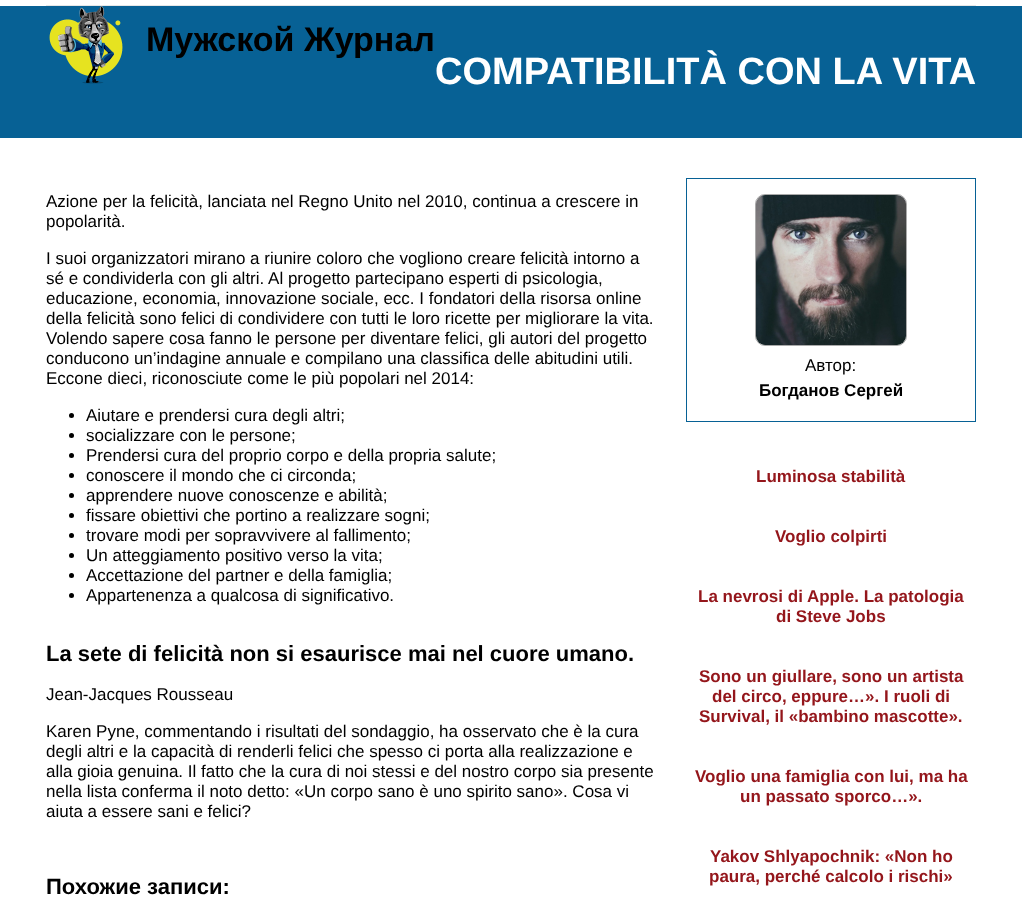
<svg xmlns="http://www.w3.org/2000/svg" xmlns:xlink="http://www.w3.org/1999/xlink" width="1022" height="897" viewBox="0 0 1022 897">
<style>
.cls-1{font:bold 34px Liberation Sans;fill:#000000}
.cls-2{font:bold 38px Liberation Sans;fill:#ffffff}
.cls-3{font:17px Liberation Sans;fill:#000000}
.cls-4{font:bold 22px Liberation Sans;fill:#000000}
.cls-5{font:bold 17px Liberation Sans;fill:#000000}
.cls-6{font:bold 17px Liberation Sans;fill:#94161b}
</style>
<rect width="100%" height="100%" fill="#ffffff"/>
<rect fill="#e7e7e7" x="46" y="5" width="930" height="1"/>
<rect fill="#076195" x="0" y="6" width="1022" height="132"/>
<image xlink:href="image0.png" x="49" y="6" width="74" height="78"/>
<circle fill="#000000" cx="71.5" cy="415.5" r="2.5"/>
<circle fill="#000000" cx="71.5" cy="435.5" r="2.5"/>
<circle fill="#000000" cx="71.5" cy="455.5" r="2.5"/>
<circle fill="#000000" cx="71.5" cy="475.5" r="2.5"/>
<circle fill="#000000" cx="71.5" cy="495.5" r="2.5"/>
<circle fill="#000000" cx="71.5" cy="515.5" r="2.5"/>
<circle fill="#000000" cx="71.5" cy="535.5" r="2.5"/>
<circle fill="#000000" cx="71.5" cy="555.5" r="2.5"/>
<circle fill="#000000" cx="71.5" cy="575.5" r="2.5"/>
<circle fill="#000000" cx="71.5" cy="595.5" r="2.5"/>
<rect fill="none" stroke="#076195" x="686.5" y="178.5" width="289" height="243"/>
<rect fill="none" stroke="#aaaaaa" x="755.5" y="194.5" width="151" height="151" rx="9.5"/>
<image xlink:href="image1.png" x="756" y="195" width="150" height="150"/>
<text class="cls-1" x="146" y="51">Мужской Журнал</text>
<text class="cls-2" x="435" y="84">COMPATIBILITÀ CON LA VITA</text>
<text class="cls-3"><tspan x="46" y="207">Azione per la felicità, lanciata nel Regno Unito nel 2010, continua a crescere in</tspan><tspan x="46" y="227">popolarità.</tspan></text>
<text class="cls-3"><tspan x="46" y="264">I suoi organizzatori mirano a riunire coloro che vogliono creare felicità intorno a</tspan><tspan x="46" y="284">sé e condividerla con gli altri. Al progetto partecipano esperti di psicologia,</tspan><tspan x="46" y="304">educazione, economia, innovazione sociale, ecc. I fondatori della risorsa online</tspan><tspan x="46" y="324">della felicità sono felici di condividere con tutti le loro ricette per migliorare la vita.</tspan><tspan x="46" y="344">Volendo sapere cosa fanno le persone per diventare felici, gli autori del progetto</tspan><tspan x="46" y="364">conducono un’indagine annuale e compilano una classifica delle abitudini utili.</tspan><tspan x="46" y="384">Eccone dieci, riconosciute come le più popolari nel 2014:</tspan></text>
<text class="cls-3"><tspan x="86" y="421">Aiutare e prendersi cura degli altri;</tspan><tspan x="86" y="441">socializzare con le persone;</tspan><tspan x="86" y="461">Prendersi cura del proprio corpo e della propria salute;</tspan><tspan x="86" y="481">conoscere il mondo che ci circonda;</tspan><tspan x="86" y="501">apprendere nuove conoscenze e abilità;</tspan><tspan x="86" y="521">fissare obiettivi che portino a realizzare sogni;</tspan><tspan x="86" y="541">trovare modi per sopravvivere al fallimento;</tspan><tspan x="86" y="561">Un atteggiamento positivo verso la vita;</tspan><tspan x="86" y="581">Accettazione del partner e della famiglia;</tspan><tspan x="86" y="601">Appartenenza a qualcosa di significativo.</tspan></text>
<text class="cls-4" x="46" y="661">La sete di felicità non si esaurisce mai nel cuore umano.</text>
<text class="cls-3" x="46" y="700">Jean-Jacques Rousseau</text>
<text class="cls-3"><tspan x="46" y="737">Karen Pyne, commentando i risultati del sondaggio, ha osservato che è la cura</tspan><tspan x="46" y="757">degli altri e la capacità di renderli felici che spesso ci porta alla realizzazione e</tspan><tspan x="46" y="777">alla gioia genuina. Il fatto che la cura di noi stessi e del nostro corpo sia presente</tspan><tspan x="46" y="797">nella lista conferma il noto detto: «Un corpo sano è uno spirito sano». Cosa vi</tspan><tspan x="46" y="817">aiuta a essere sani e felici?</tspan></text>
<text class="cls-4" x="46" y="894">Похожие записи:</text>
<text class="cls-3" x="805" y="371">Автор:</text>
<text class="cls-5" x="759" y="396">Богданов Сергей</text>
<text class="cls-6" x="756" y="482">Luminosa stabilità</text>
<text class="cls-6" x="775" y="542">Voglio colpirti</text>
<text class="cls-6" x="698" y="602">La nevrosi di Apple. La patologia</text>
<text class="cls-6" x="776" y="622">di Steve Jobs</text>
<text class="cls-6" x="699" y="682">Sono un giullare, sono un artista</text>
<text class="cls-6" x="712" y="702">del circo, eppure…». I ruoli di</text>
<text class="cls-6" x="699" y="722">Survival, il «bambino mascotte».</text>
<text class="cls-6" x="695" y="782">Voglio una famiglia con lui, ma ha</text>
<text class="cls-6" x="740" y="802">un passato sporco…».</text>
<text class="cls-6" x="710" y="862">Yakov Shlyapochnik: «Non ho</text>
<text class="cls-6" x="709" y="882">paura, perché calcolo i rischi»</text>
</svg>
